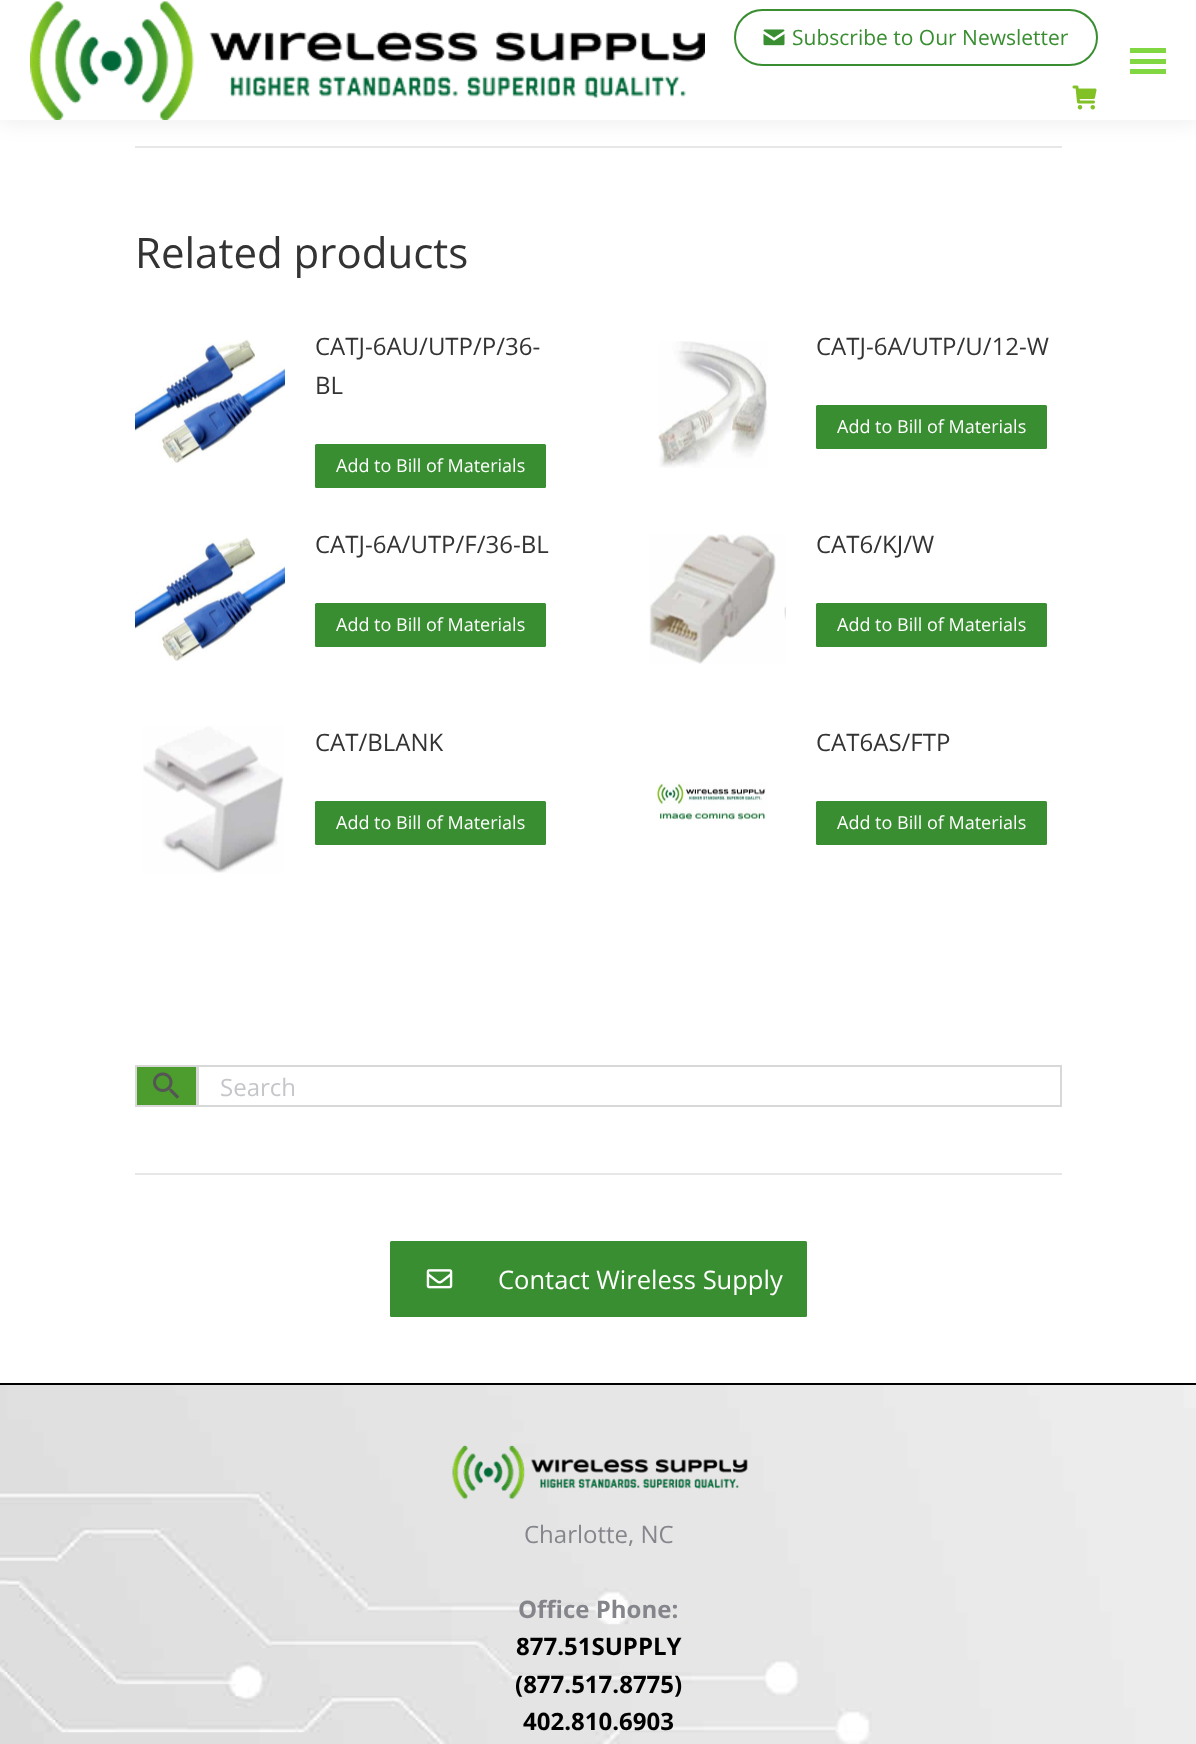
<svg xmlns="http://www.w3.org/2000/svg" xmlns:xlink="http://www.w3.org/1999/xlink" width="1196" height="1744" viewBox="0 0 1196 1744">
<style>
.cls-1{font:21px Open Sans;fill:#388e30}
.cls-2{font:42px Open Sans;fill:#333333}
.cls-3{font:24px Open Sans;fill:#333333}
.cls-4{font:18px Open Sans;fill:#ffffff}
.cls-5{font:24px Open Sans;fill:#c5c6ca}
.cls-6{font:25.5px Open Sans;fill:#ffffff}
.cls-7{font:24px Open Sans;fill:#85868c}
.cls-8{font:bold 24px Open Sans;fill:#85868c}
.cls-9{font:bold 24px Open Sans;fill:#000000}
</style>
<rect width="100%" height="100%" fill="#ffffff"/>
<rect fill="#e7e7e7" x="135" y="146" width="927" height="2"/>
<rect fill="#000000" fill-opacity="0.07" filter="blur(11px)" x="-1" y="-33" width="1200" height="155"/>
<rect fill="#ffffff" x="0" y="0" width="1196" height="120"/>
<image xlink:href="image0.png" x="30" y="1" width="675" height="119"/>
<rect fill="none" stroke="#388e30" stroke-width="2" x="735" y="10" width="362" height="55" rx="27.5"/>
<image xlink:href="image1.png" x="763" y="29" width="22" height="17"/>
<image xlink:href="image2.png" x="1072" y="85" width="25" height="25"/>
<rect fill="#81d742" x="1130" y="48" width="36" height="5"/>
<rect fill="#81d742" x="1130" y="59" width="36" height="5"/>
<rect fill="#81d742" x="1130" y="69" width="36" height="5"/>
<image xlink:href="image3.png" x="135" y="339" width="150" height="124"/>
<rect fill="#388e30" x="315" y="444" width="231" height="44" rx="1.5"/>
<image xlink:href="image4.png" x="658" y="341" width="110" height="127"/>
<rect fill="#388e30" x="816" y="405" width="231" height="44" rx="1.5"/>
<image xlink:href="image3.png" x="135" y="537" width="150" height="124"/>
<rect fill="#388e30" x="315" y="603" width="231" height="44" rx="1.5"/>
<image xlink:href="image5.png" x="649" y="534" width="137" height="130"/>
<rect fill="#388e30" x="816" y="603" width="231" height="44" rx="1.5"/>
<image xlink:href="image6.png" x="143" y="726" width="141" height="147"/>
<rect fill="#388e30" x="315" y="801" width="231" height="44" rx="1.5"/>
<image xlink:href="image7.png" x="656" y="782" width="111" height="39"/>
<rect fill="#388e30" x="816" y="801" width="231" height="44" rx="1.5"/>
<rect fill="#4c9c2e" stroke="#d8d8d8" stroke-width="2" x="136" y="1066" width="61" height="40"/>
<image xlink:href="image8.png" x="153" y="1072" width="26" height="27"/>
<rect fill="none" stroke="#d8d8d8" stroke-width="2" x="198" y="1066" width="863" height="40"/>
<rect fill="#e7e7e7" x="135" y="1173" width="927" height="2"/>
<rect fill="#388e30" x="390" y="1241" width="417" height="76" rx="1.5"/>
<image xlink:href="image9.png" x="426" y="1269" width="27" height="20"/>
<image xlink:href="image10.png" x="0" y="1385" width="1196" height="359"/>
<rect fill="#000000" x="0" y="1383" width="1196" height="2"/>
<image xlink:href="image11.png" x="452" y="1445" width="296" height="55"/>
<text class="cls-1" x="792" y="45">Subscribe to Our Newsletter</text>
<text class="cls-2" x="135" y="268">Related products</text>
<text class="cls-3"><tspan x="315" y="355">CATJ-6AU/UTP/P/36-</tspan><tspan x="315" y="394">BL</tspan></text>
<text class="cls-4" x="336" y="472">Add to Bill of Materials</text>
<text class="cls-3" x="816" y="355">CATJ-6A/UTP/U/12-W</text>
<text class="cls-4" x="837" y="433">Add to Bill of Materials</text>
<text class="cls-3" x="315" y="553">CATJ-6A/UTP/F/36-BL</text>
<text class="cls-4" x="336" y="631">Add to Bill of Materials</text>
<text class="cls-3" x="816" y="553">CAT6/KJ/W</text>
<text class="cls-4" x="837" y="631">Add to Bill of Materials</text>
<text class="cls-3" x="315" y="751">CAT/BLANK</text>
<text class="cls-4" x="336" y="829">Add to Bill of Materials</text>
<text class="cls-3" x="816" y="751">CAT6AS/FTP</text>
<text class="cls-4" x="837" y="829">Add to Bill of Materials</text>
<text class="cls-5" x="220" y="1096">Search</text>
<text class="cls-6" x="498" y="1289">Contact Wireless Supply</text>
<text class="cls-7" x="524" y="1543">Charlotte, NC</text>
<text class="cls-8" x="518" y="1618">Office Phone:</text>
<text class="cls-9" x="516" y="1655">877.51SUPPLY</text>
<text class="cls-9" x="515" y="1693">(877.517.8775)</text>
<text class="cls-9" x="523" y="1730">402.810.6903</text>
</svg>
